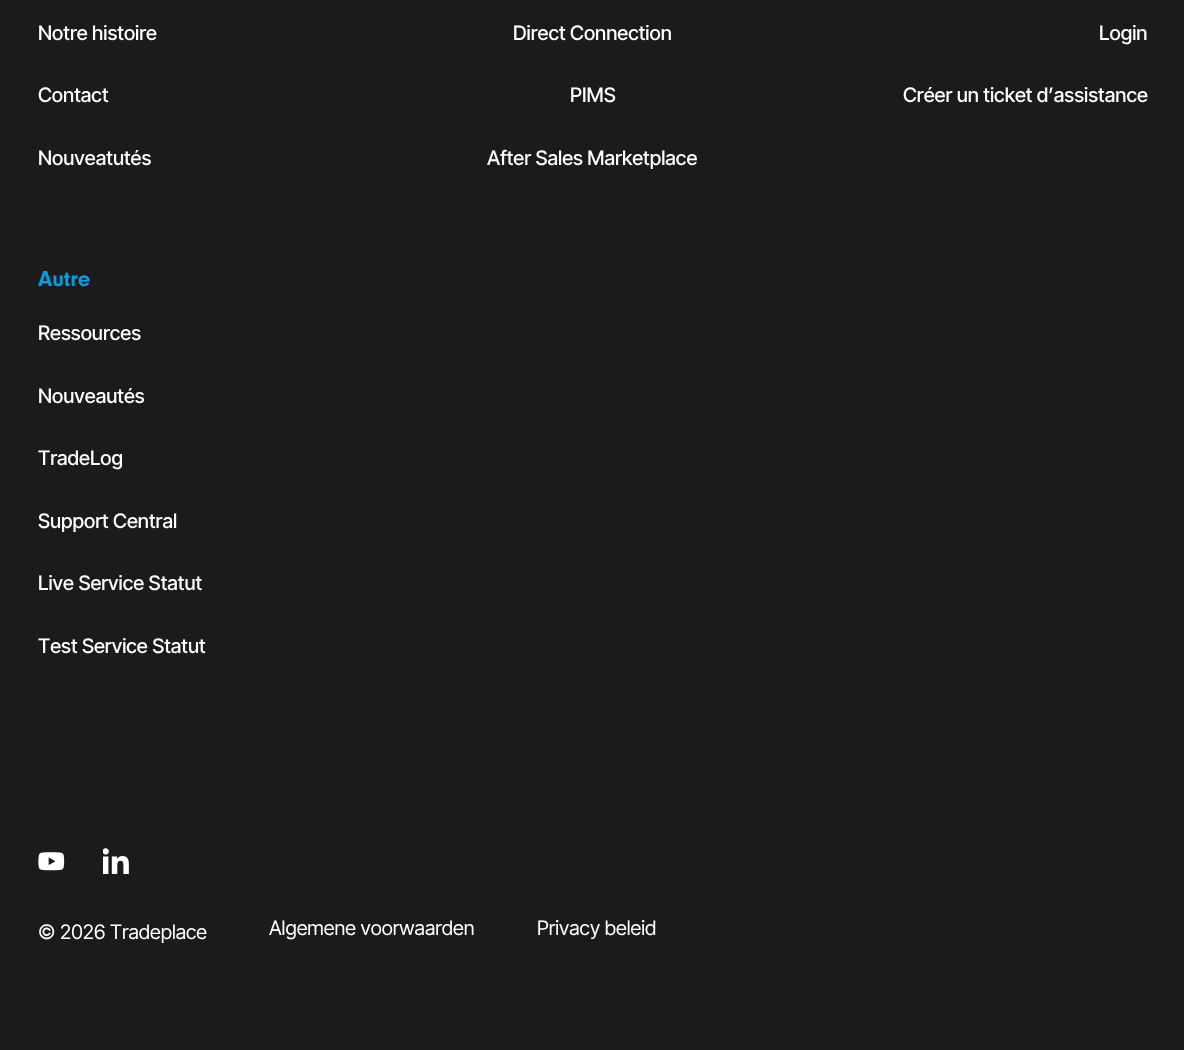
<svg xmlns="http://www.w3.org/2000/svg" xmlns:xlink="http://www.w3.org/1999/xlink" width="1184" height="1050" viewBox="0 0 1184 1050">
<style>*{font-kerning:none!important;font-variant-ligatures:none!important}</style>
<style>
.cls-1{font:500 20px Inter Tight;fill:#ffffff}
.cls-2{font:bold 22.5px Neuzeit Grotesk;fill:#009fe3}
.cls-3{font:20px Inter Tight;fill:#ffffff}
</style>
<rect width="100%" height="100%" fill="#1b1b1b"/>
<image xlink:href="image0.png" x="38" y="852" width="27" height="19"/>
<image xlink:href="image1.png" x="103" y="848" width="26" height="26"/>
<text class="cls-1" x="38" y="40">Notre histoire</text>
<text class="cls-1" x="38" y="102">Contact</text>
<text class="cls-1" x="38" y="165">Nouveatutés</text>
<text class="cls-1" x="513" y="40">Direct Connection</text>
<text class="cls-1" x="570" y="102">PIMS</text>
<text class="cls-1" x="487" y="165">After Sales Marketplace</text>
<text class="cls-1" x="1099" y="40">Login</text>
<text class="cls-1" x="903" y="102">Créer un ticket d’assistance</text>
<text class="cls-2" x="38" y="286">Autre</text>
<text class="cls-1" x="38" y="340">Ressources</text>
<text class="cls-1" x="38" y="403">Nouveautés</text>
<text class="cls-1" x="38" y="465">TradeLog</text>
<text class="cls-1" x="38" y="528">Support Central</text>
<text class="cls-1" x="38" y="590">Live Service Statut</text>
<text class="cls-1" x="38" y="653">Test Service Statut</text>
<text class="cls-3" x="38" y="939">© 2026 Tradeplace</text>
<text class="cls-3" x="269" y="935">Algemene voorwaarden</text>
<text class="cls-3" x="537" y="935">Privacy beleid</text>
</svg>
